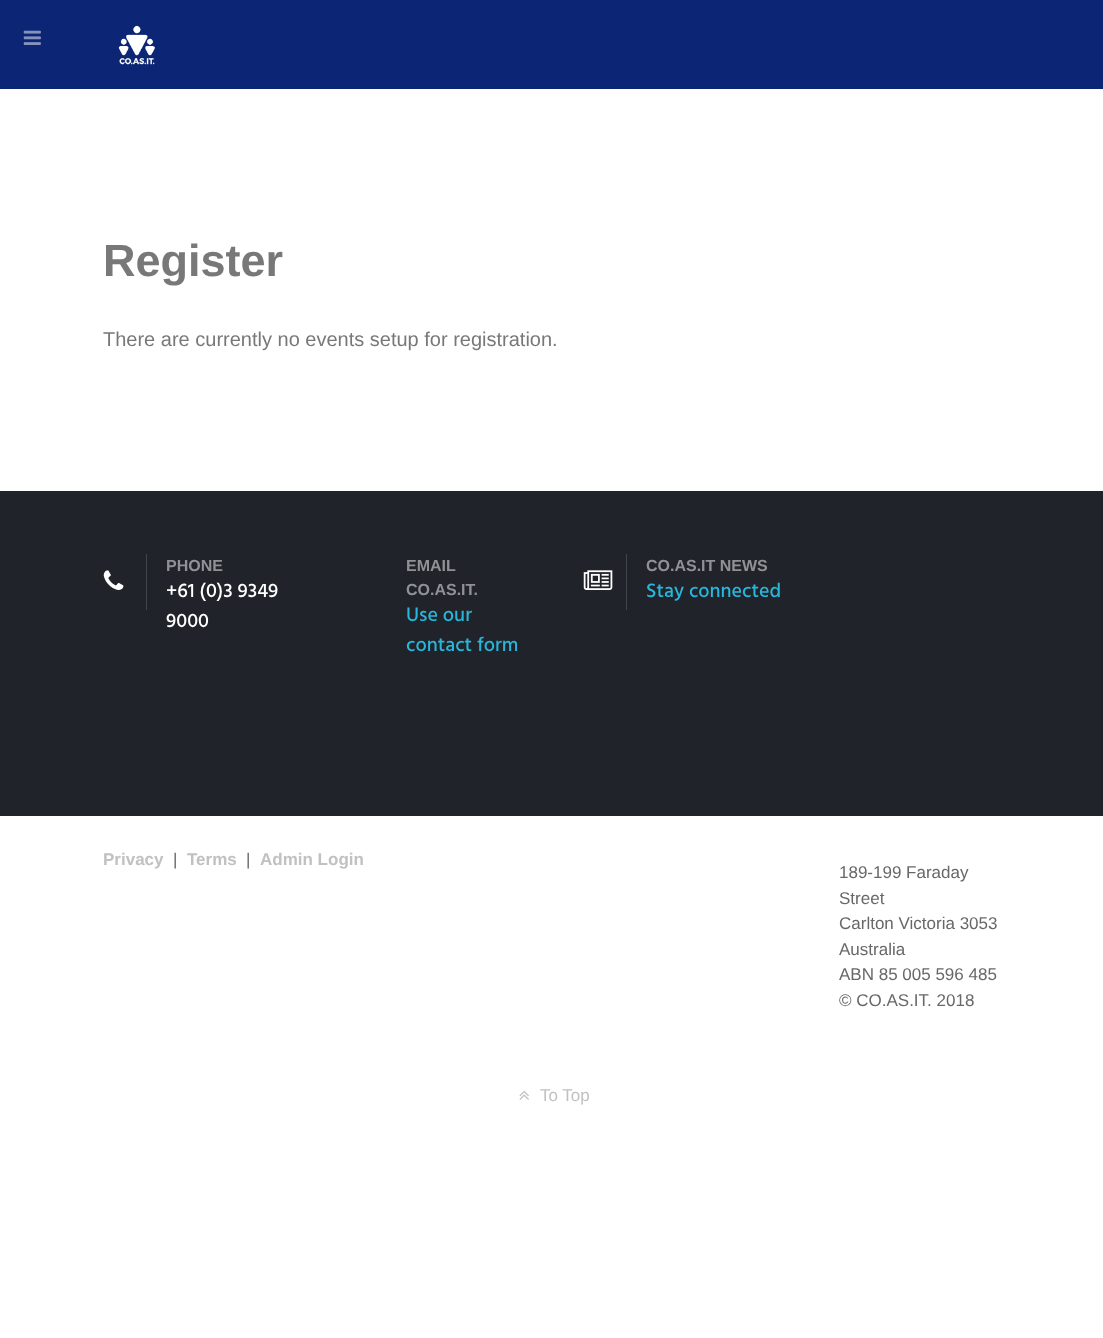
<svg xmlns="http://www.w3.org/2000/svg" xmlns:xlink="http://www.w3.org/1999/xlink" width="1103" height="1338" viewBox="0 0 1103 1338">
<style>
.cls-1{font:bold 45px Liberation Sans;fill:#787878}
.cls-2{font:20px Liberation Sans;fill:#787878}
.cls-3{font:bold 16px Liberation Sans;fill:#909195}
.cls-4{font:500 20px Hind;fill:#ffffff}
.cls-5{font:500 20px Hind;fill:#28b7db}
.cls-6{font:bold 17px Liberation Sans;fill:#c1c1c1}
.cls-7{font:17px Liberation Sans;fill:#686868}
.cls-8{font:17px Liberation Sans;fill:#c1c1c1}
</style>
<rect width="100%" height="100%" fill="#ffffff"/>
<rect fill="#0c2574" x="0" y="0" width="1103" height="89"/>
<image xlink:href="image0.png" x="118" y="25" width="37" height="40"/>
<image xlink:href="image1.png" x="23" y="30" width="18" height="15"/>
<rect fill="#20232a" x="0" y="491" width="1103" height="325"/>
<rect fill="#41444a" x="146" y="554" width="1" height="56"/>
<image xlink:href="image2.png" x="103" y="570" width="21" height="20"/>
<rect fill="#41444a" x="626" y="554" width="1" height="56"/>
<image xlink:href="image3.png" x="583" y="570" width="30" height="20"/>
<image xlink:href="image4.png" x="519" y="1090" width="10" height="10"/>
<text class="cls-1" x="103" y="276">Register</text>
<text class="cls-2" x="103" y="346">There are currently no events setup for registration.</text>
<text class="cls-3" x="166" y="571">PHONE</text>
<text class="cls-4"><tspan x="166" y="597">+61 (0)3 9349</tspan><tspan x="166" y="627">9000</tspan></text>
<text class="cls-3"><tspan x="406" y="571">EMAIL</tspan><tspan x="406" y="595">CO.AS.IT.</tspan></text>
<text class="cls-5"><tspan x="406" y="621">Use our</tspan><tspan x="406" y="651">contact form</tspan></text>
<text class="cls-3" x="646" y="571">CO.AS.IT NEWS</text>
<text class="cls-5" x="646" y="597">Stay connected</text>
<text class="cls-6" x="103" y="865">Privacy</text>
<text class="cls-7" x="173" y="865">|</text>
<text class="cls-6" x="187" y="865">Terms</text>
<text class="cls-7" x="246" y="865">|</text>
<text class="cls-6" x="260" y="865">Admin Login</text>
<text class="cls-7"><tspan x="839" y="878">189-199 Faraday</tspan><tspan x="839" y="904">Street</tspan><tspan x="839" y="929">Carlton Victoria 3053</tspan><tspan x="839" y="955">Australia</tspan><tspan x="839" y="980">ABN 85 005 596 485</tspan><tspan x="839" y="1006">© CO.AS.IT. 2018</tspan></text>
<text class="cls-8" x="540" y="1101">To Top</text>
</svg>
